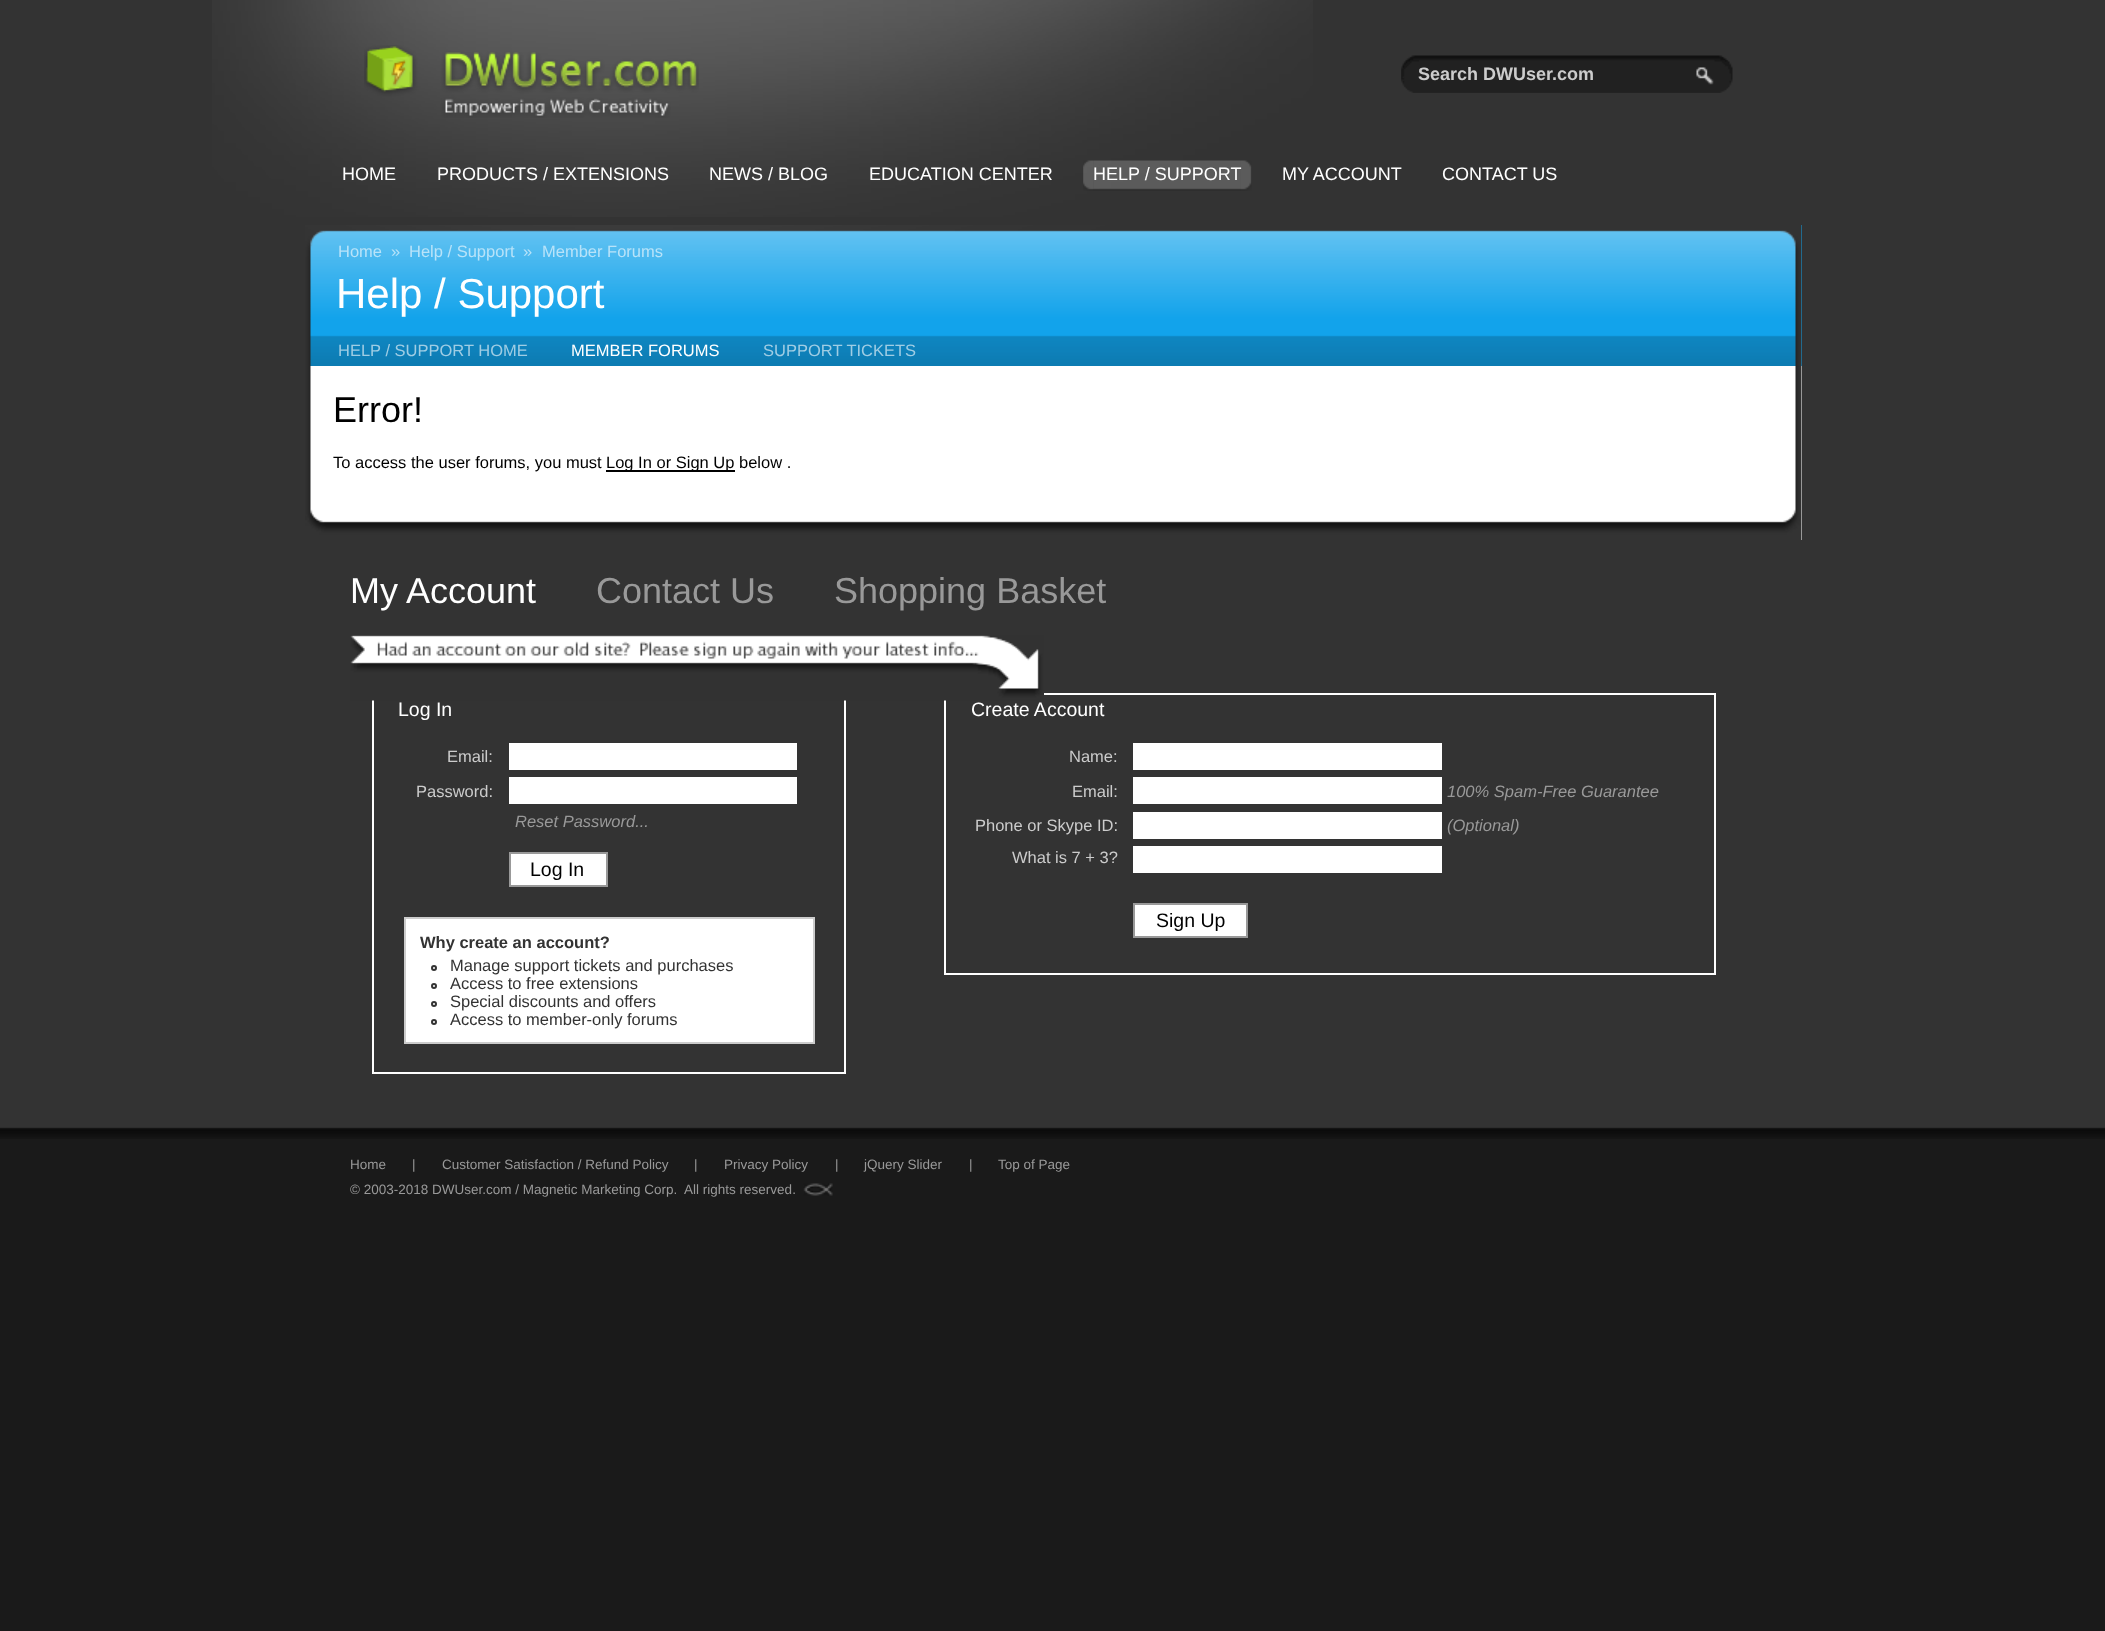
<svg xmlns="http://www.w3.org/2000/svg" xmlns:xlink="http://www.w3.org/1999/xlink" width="2105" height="1631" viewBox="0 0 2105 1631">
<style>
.cls-1{font:bold 18px Liberation Sans;fill:#cccccc}
.cls-2{font:18px Liberation Sans;fill:#ffffff}
.cls-3{font:16.5px Liberation Sans;fill:#b8e3f9}
.cls-4{font:42px Liberation Sans;fill:#ffffff}
.cls-5{font:16.5px Liberation Sans;fill:#9fcde4}
.cls-6{font:16.5px Liberation Sans;fill:#ffffff}
.cls-7{font:36px Liberation Sans;fill:#000000}
.cls-8{font:16.5px Liberation Sans;fill:#000000}
.cls-9{font:36px Liberation Sans;fill:#ffffff}
.cls-10{font:36px Liberation Sans;fill:#999999}
.cls-11{font:19.5px Liberation Sans;fill:#ffffff}
.cls-12{font:16.5px Liberation Sans;fill:#cccccc}
.cls-13{font:italic 16.5px Liberation Sans;fill:#999999}
.cls-14{font:19.5px Liberation Sans;fill:#000000}
.cls-15{font:bold 16.5px Liberation Sans;fill:#333333}
.cls-16{font:16.5px Liberation Sans;fill:#333333}
.cls-17{font:13.5px Liberation Sans;fill:#999999}
</style>
<rect width="100%" height="100%" fill="#1a1a1a"/>
<rect fill="#333333" x="0" y="0" width="2105" height="1127"/>
<image xlink:href="image0.png" x="212" y="0" width="1101" height="217"/>
<image xlink:href="image1.png" x="364" y="45" width="335" height="73"/>
<image xlink:href="image2.png" x="1401" y="55" width="332" height="38"/>
<image xlink:href="image3.png" x="1083" y="160" width="11" height="31"/>
<image xlink:href="image4.png" x="1093" y="160" width="148" height="31"/>
<rect fill="#ffffff" x="1801" y="366" width="1" height="174"/>
<rect fill="#12a3eb" x="310" y="225" width="1492" height="141"/>
<image xlink:href="image6.png" x="305" y="225" width="1497" height="141"/>
<image xlink:href="image7.png" x="305" y="366" width="1497" height="138"/>
<rect fill="#000000" x="606" y="470" width="129" height="2"/>
<image xlink:href="image8.png" x="305" y="504" width="1497" height="36"/>
<rect fill="none" stroke="#ffffff" stroke-width="2" x="373" y="694" width="472" height="379"/>
<rect fill="none" stroke="#ffffff" stroke-width="2" x="945" y="694" width="770" height="280"/>
<image xlink:href="image9.png" x="350" y="635" width="694" height="66"/>
<rect fill="#ffffff" x="509" y="743" width="288" height="27"/>
<rect fill="#ffffff" x="509" y="777" width="288" height="27"/>
<rect fill="#ffffff" stroke="#999999" stroke-width="2" x="510" y="853" width="97" height="33"/>
<rect fill="#ffffff" stroke="#cccccc" stroke-width="2" x="405" y="918" width="409" height="125"/>
<circle fill="none" stroke="#333333" stroke-width="2" cx="434" cy="968" r="2"/>
<circle fill="none" stroke="#333333" stroke-width="2" cx="434" cy="986" r="2"/>
<circle fill="none" stroke="#333333" stroke-width="2" cx="434" cy="1004" r="2"/>
<circle fill="none" stroke="#333333" stroke-width="2" cx="434" cy="1022" r="2"/>
<rect fill="#ffffff" x="1133" y="743" width="309" height="27"/>
<rect fill="#ffffff" x="1133" y="777" width="309" height="27"/>
<rect fill="#ffffff" x="1133" y="812" width="309" height="27"/>
<rect fill="#ffffff" x="1133" y="846" width="309" height="27"/>
<rect fill="#ffffff" stroke="#999999" stroke-width="2" x="1134" y="904" width="113" height="33"/>
<image xlink:href="image10.png" x="0" y="1127" width="2105" height="12"/>
<image xlink:href="image11.png" x="803" y="1183" width="30" height="13"/>
<text class="cls-1" x="1418" y="80">Search DWUser.com</text>
<text class="cls-2" x="342" y="180">HOME</text>
<text class="cls-2" x="437" y="180">PRODUCTS / EXTENSIONS</text>
<text class="cls-2" x="709" y="180">NEWS / BLOG</text>
<text class="cls-2" x="869" y="180">EDUCATION CENTER</text>
<text class="cls-2" x="1093" y="180">HELP / SUPPORT</text>
<image xlink:href="image5.png" x="1240" y="160" width="12" height="31"/>
<text class="cls-2" x="1282" y="180">MY ACCOUNT</text>
<text class="cls-2" x="1442" y="180">CONTACT US</text>
<text class="cls-3" x="338" y="257">Home</text>
<text class="cls-3" x="391" y="257">»</text>
<text class="cls-3" x="409" y="257">Help / Support</text>
<text class="cls-3" x="523" y="257">»</text>
<text class="cls-3" x="542" y="257">Member Forums</text>
<text class="cls-4" x="336" y="308">Help / Support</text>
<text class="cls-5" x="338" y="356">HELP / SUPPORT HOME</text>
<text class="cls-6" x="571" y="356">MEMBER FORUMS</text>
<text class="cls-5" x="763" y="356">SUPPORT TICKETS</text>
<text class="cls-7" x="333" y="422">Error!</text>
<text class="cls-8" x="333" y="468">To access the user forums, you must</text>
<text class="cls-8" x="606" y="468">Log In or Sign Up below .</text>
<text class="cls-9" x="350" y="603">My Account</text>
<text class="cls-10" x="596" y="603">Contact Us</text>
<text class="cls-10" x="834" y="603">Shopping Basket</text>
<text class="cls-11" x="398" y="716">Log In</text>
<text class="cls-12" x="447" y="762">Email:</text>
<text class="cls-12" x="416" y="797">Password:</text>
<text class="cls-13" x="515" y="827">Reset Password...</text>
<text class="cls-14" x="530" y="876">Log In</text>
<text class="cls-15" x="420" y="948">Why create an account?</text>
<text class="cls-16"><tspan x="450" y="971">Manage support tickets and purchases</tspan><tspan x="450" y="989">Access to free extensions</tspan><tspan x="450" y="1007">Special discounts and offers</tspan><tspan x="450" y="1025">Access to member-only forums</tspan></text>
<text class="cls-11" x="971" y="716">Create Account</text>
<text class="cls-12" x="1069" y="762">Name:</text>
<text class="cls-12" x="1072" y="797">Email:</text>
<text class="cls-13" x="1447" y="797">100% Spam-Free Guarantee</text>
<text class="cls-12" x="975" y="831">Phone or Skype ID:</text>
<text class="cls-13" x="1447" y="831">(Optional)</text>
<text class="cls-12" x="1012" y="863">What is 7 + 3?</text>
<text class="cls-14" x="1156" y="927">Sign Up</text>
<text class="cls-17" x="350" y="1169">Home</text>
<text class="cls-17" x="412" y="1169">|</text>
<text class="cls-17" x="442" y="1169">Customer Satisfaction / Refund Policy</text>
<text class="cls-17" x="694" y="1169">|</text>
<text class="cls-17" x="724" y="1169">Privacy Policy</text>
<text class="cls-17" x="835" y="1169">|</text>
<text class="cls-17" x="864" y="1169">jQuery Slider</text>
<text class="cls-17" x="969" y="1169">|</text>
<text class="cls-17" x="998" y="1169">Top of Page</text>
<text class="cls-17" xml:space="preserve" x="350" y="1194">© 2003-2018 DWUser.com / Magnetic Marketing Corp.  All rights reserved.</text>
</svg>
